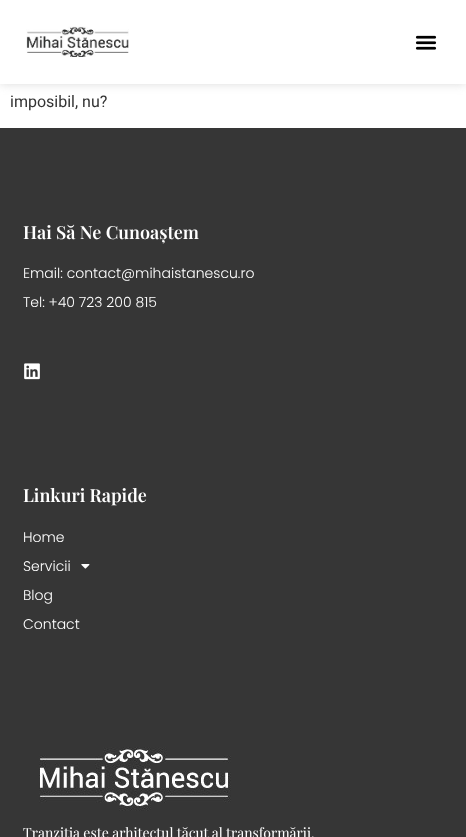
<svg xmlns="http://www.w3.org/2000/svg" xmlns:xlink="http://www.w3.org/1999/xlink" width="466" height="837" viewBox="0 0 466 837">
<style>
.cls-1{font:16px Roboto;fill:#333333}
.cls-2{font:600 18px Playfair Display;fill:#ffffff}
.cls-3{font:300 14px Poppins;fill:#ffffff}
.cls-4{font:14px Playfair Display;fill:#ffffff}
</style>
<rect width="100%" height="100%" fill="#ffffff"/>
<rect fill="#b8b8b8" fill-opacity="0.5" filter="blur(5px)" x="0" y="0" width="466" height="84"/>
<rect fill="#ffffff" x="0" y="0" width="466" height="84"/>
<image xlink:href="image0.png" x="26" y="26" width="103" height="31"/>
<image xlink:href="image1.png" x="415" y="35" width="22" height="15"/>
<rect fill="#363636" x="0" y="128" width="466" height="709"/>
<image xlink:href="image2.png" x="24" y="363" width="16" height="17"/>
<image xlink:href="image3.png" x="81" y="564" width="9" height="5"/>
<image xlink:href="image4.png" x="39" y="747" width="192" height="64"/>
<text class="cls-1" x="10" y="107">imposibil, nu?</text>
<text class="cls-2" x="23" y="239">Hai Să Ne Cunoaștem</text>
<text class="cls-3" x="23" y="278">Email: contact@mihaistanescu.ro</text>
<text class="cls-3" x="23" y="307">Tel: +40 723 200 815</text>
<text class="cls-2" x="23" y="502">Linkuri Rapide</text>
<text class="cls-3" x="23" y="542">Home</text>
<text class="cls-3" x="23" y="571">Servicii</text>
<text class="cls-3" x="23" y="600">Blog</text>
<text class="cls-3" x="23" y="629">Contact</text>
<text class="cls-4" x="23" y="838">Tranziția este arhitectul tăcut al transformării.</text>
</svg>
